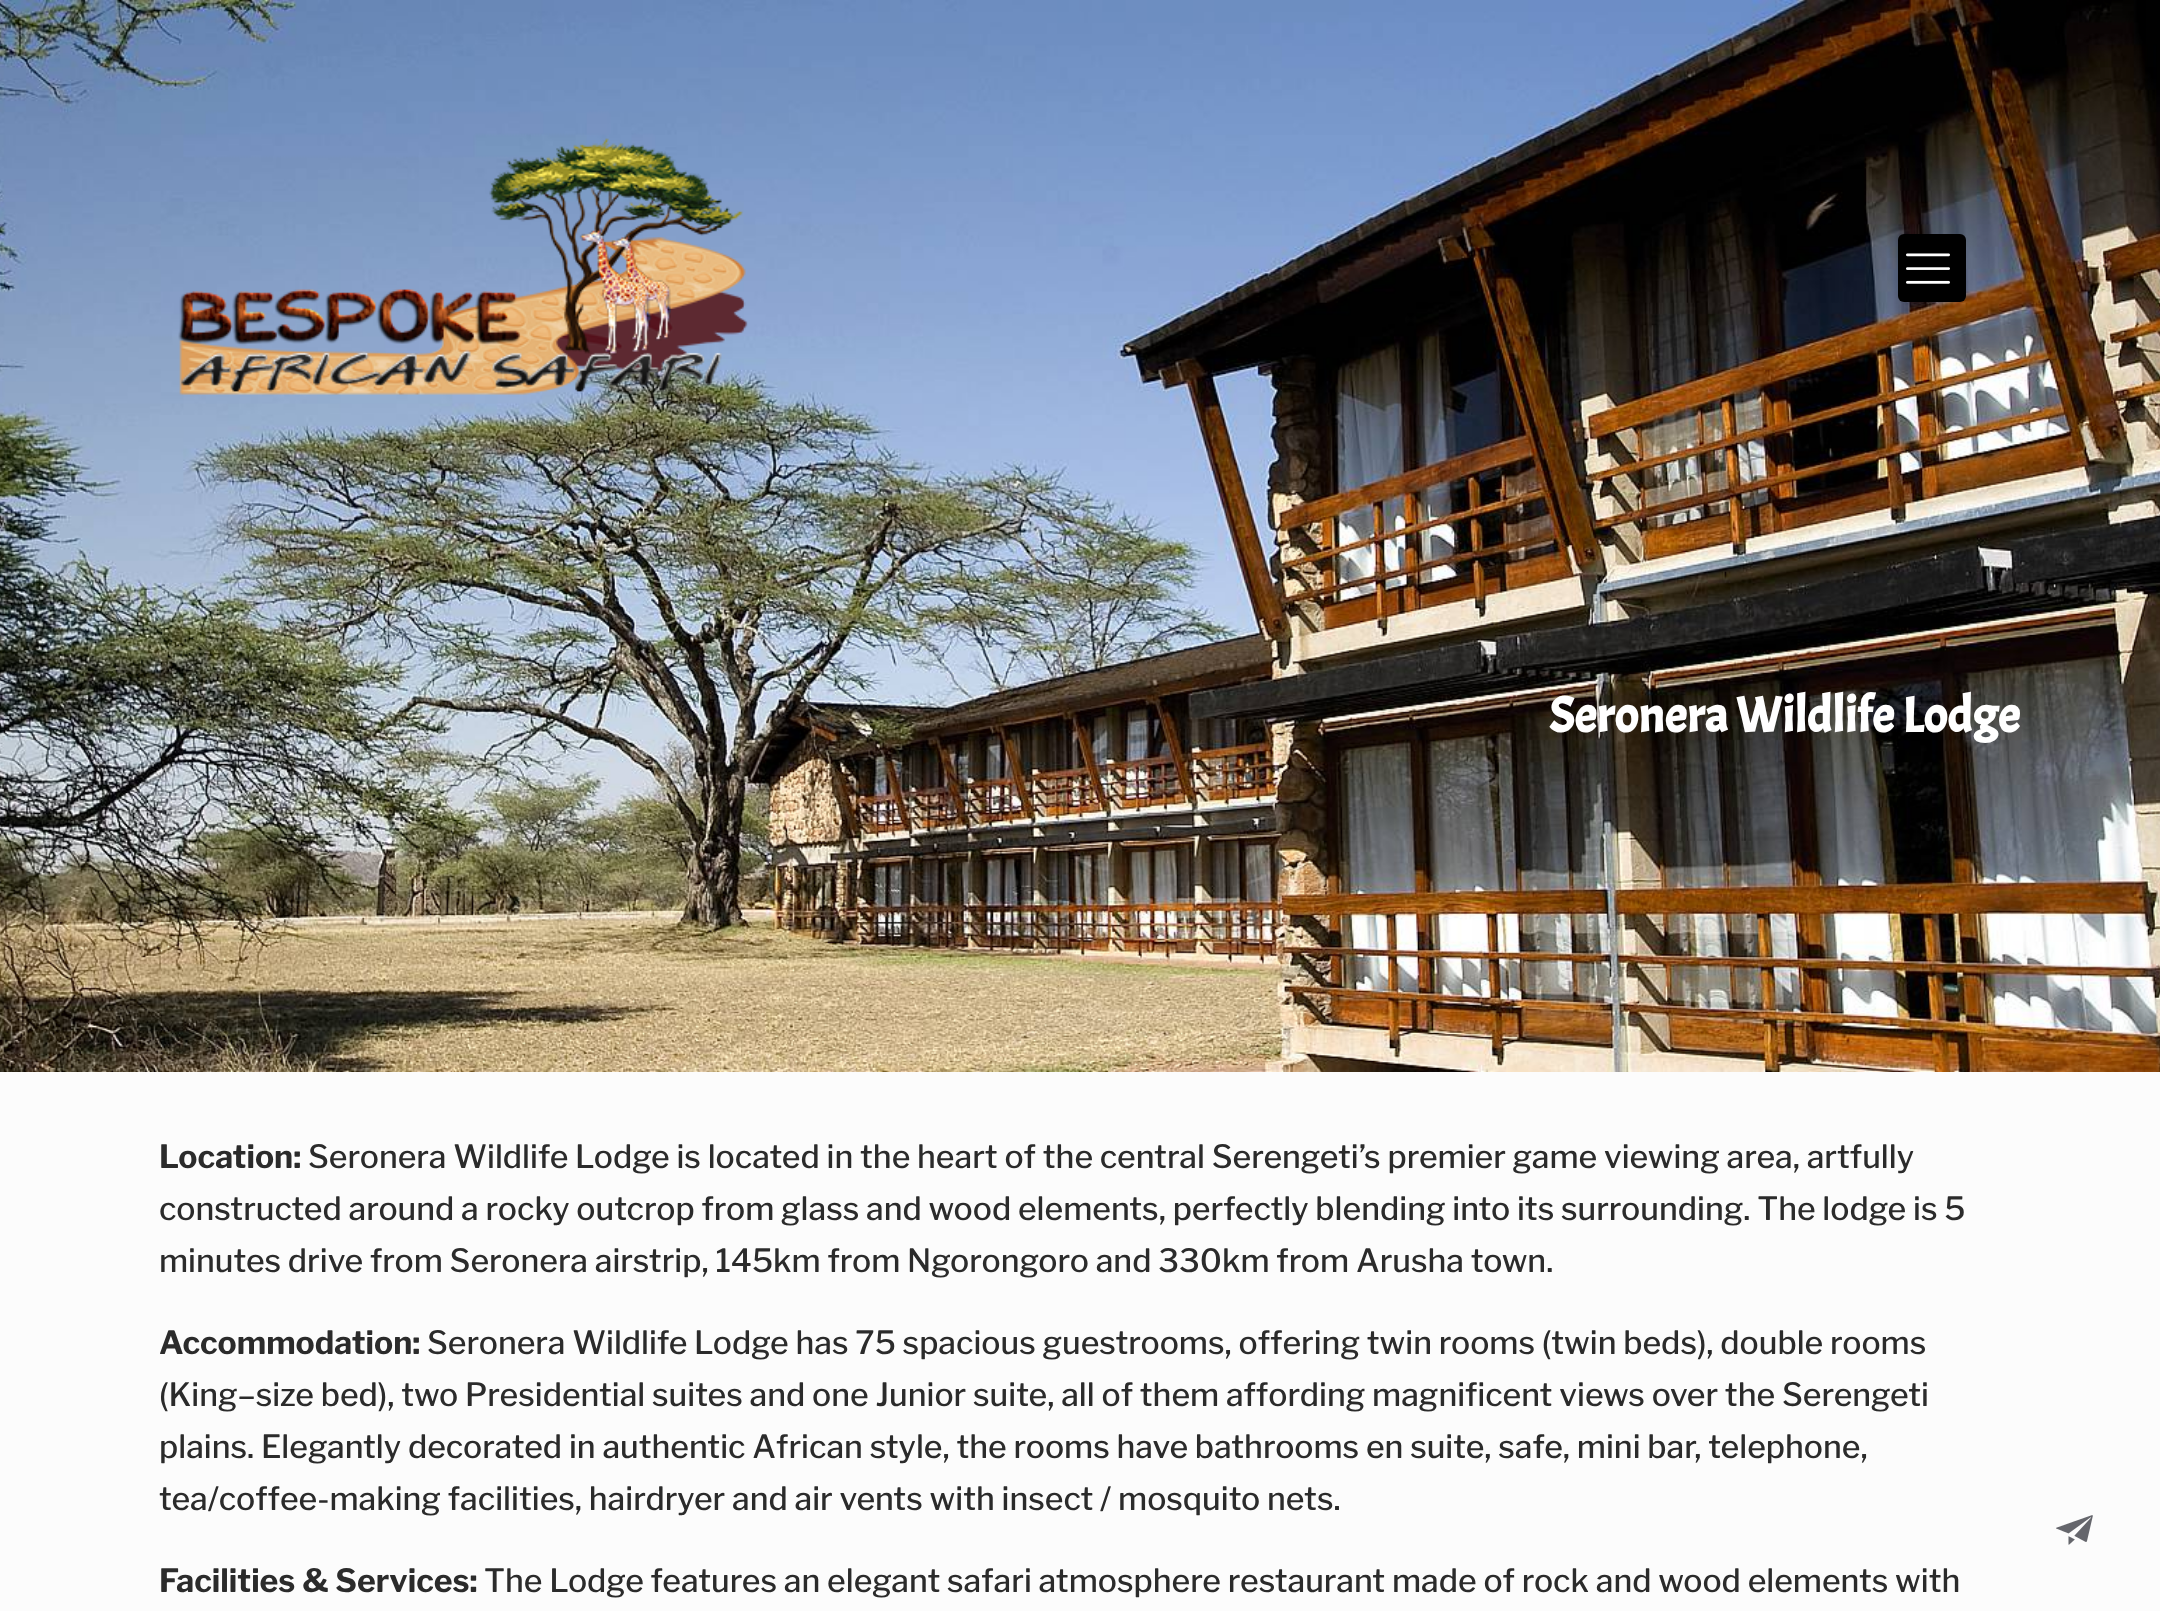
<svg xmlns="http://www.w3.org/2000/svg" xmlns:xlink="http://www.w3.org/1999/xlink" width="2160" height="1611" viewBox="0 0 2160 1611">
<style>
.cls-1{font:bold 50px Acme;fill:#ffffff}
.cls-2{font:bold 32px Libre Franklin;fill:#2b2b2b}
.cls-3{font:500 32px Libre Franklin;fill:#2b2b2b}
</style>
<rect width="100%" height="100%" fill="#fcfcfc"/>
<image xlink:href="image2.png" x="0" y="0" width="2160" height="1072"/>
<image xlink:href="image0.png" x="178" y="138" width="570" height="257"/>
<rect fill="#000000" x="1898" y="234" width="68" height="68" rx="6"/>
<image xlink:href="image1.png" x="1906" y="253" width="44" height="31"/>
<image xlink:href="image3.png" x="2056" y="1515" width="37" height="30"/>
<text class="cls-1" x="1549" y="732">Seronera Wildlife Lodge</text>
<text class="cls-2" x="159" y="1168">Location:</text>
<text class="cls-3" x="308" y="1168">Seronera Wildlife Lodge is located in the heart of the central Serengeti’s premier game viewing area, artfully</text>
<text class="cls-3"><tspan x="159" y="1220">constructed around a rocky outcrop from glass and wood elements, perfectly blending into its surrounding. The lodge is 5</tspan><tspan x="159" y="1272">minutes drive from Seronera airstrip, 145km from Ngorongoro and 330km from Arusha town.</tspan></text>
<text class="cls-2" x="159" y="1354">Accommodation:</text>
<text class="cls-3" x="427" y="1354">Seronera Wildlife Lodge has 75 spacious guestrooms, offering twin rooms (twin beds), double rooms</text>
<text class="cls-3"><tspan x="159" y="1406">(King–size bed), two Presidential suites and one Junior suite, all of them affording magnificent views over the Serengeti</tspan><tspan x="159" y="1458">plains. Elegantly decorated in authentic African style, the rooms have bathrooms en suite, safe, mini bar, telephone,</tspan><tspan x="159" y="1510">tea/coffee-making facilities, hairdryer and air vents with insect / mosquito nets.</tspan></text>
<text class="cls-2" x="159" y="1592">Facilities &amp; Services:</text>
<text class="cls-3" x="484" y="1592">The Lodge features an elegant safari atmosphere restaurant made of rock and wood elements with</text>
</svg>
